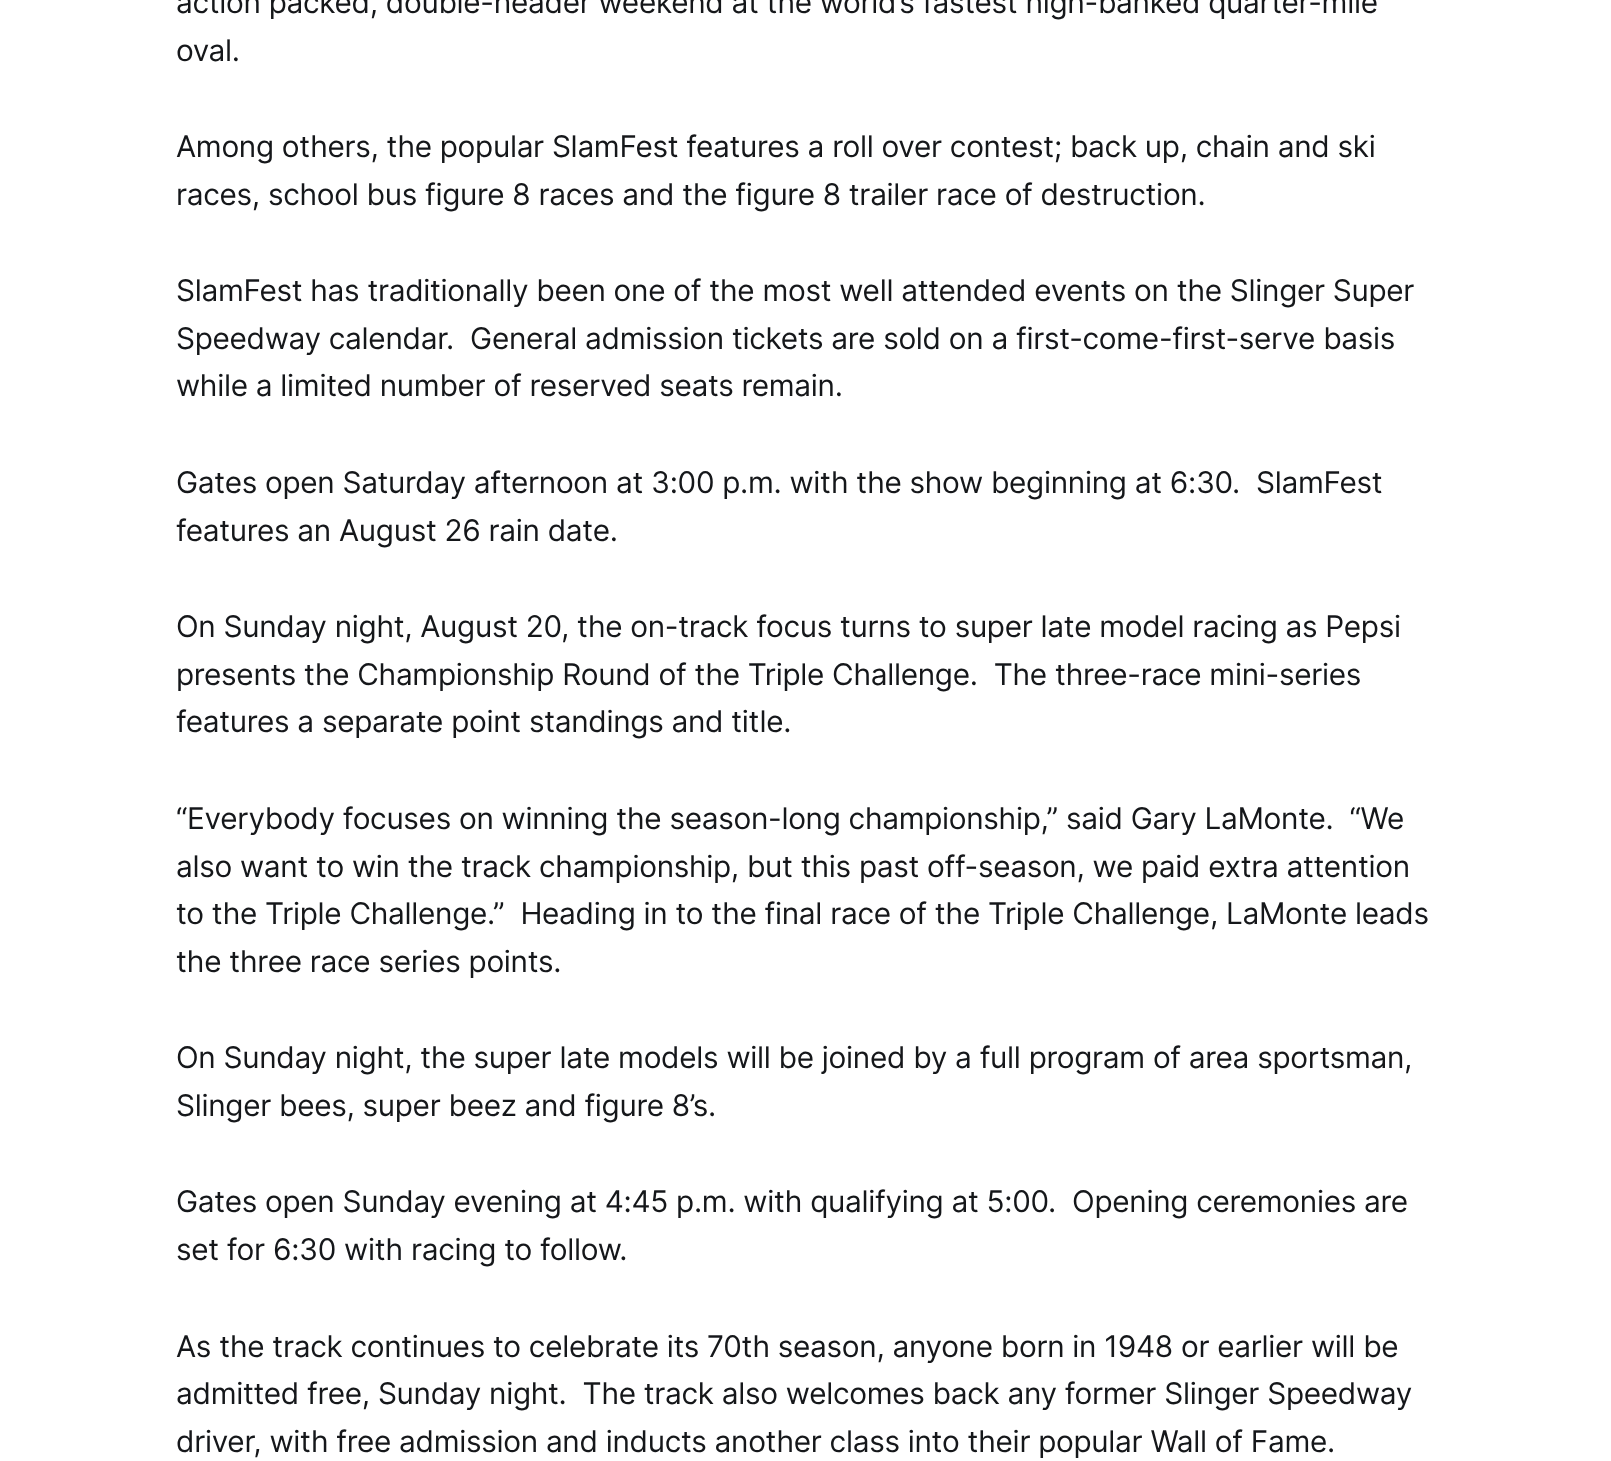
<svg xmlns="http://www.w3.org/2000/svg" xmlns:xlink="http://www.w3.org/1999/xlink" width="1611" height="1461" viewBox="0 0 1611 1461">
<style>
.cls-1{font:29.75px Inter;letter-spacing:-0.3px;fill:#15171a}
</style>
<rect width="100%" height="100%" fill="#ffffff"/>
<text class="cls-1"><tspan x="176" y="13">action packed, double-header weekend at the world’s fastest high-banked quarter-mile</tspan><tspan x="176" y="61">oval.</tspan></text>
<text class="cls-1"><tspan x="176" y="157">Among others, the popular SlamFest features a roll over contest; back up, chain and ski</tspan><tspan x="176" y="205">races, school bus figure 8 races and the figure 8 trailer race of destruction.</tspan></text>
<text class="cls-1" xml:space="preserve"><tspan x="176" y="301">SlamFest has traditionally been one of the most well attended events on the Slinger Super</tspan><tspan x="176" y="349">Speedway calendar.  General admission tickets are sold on a first-come-first-serve basis</tspan><tspan x="176" y="396">while a limited number of reserved seats remain.</tspan></text>
<text class="cls-1" xml:space="preserve"><tspan x="176" y="493">Gates open Saturday afternoon at 3:00 p.m. with the show beginning at 6:30.  SlamFest</tspan><tspan x="176" y="541">features an August 26 rain date.</tspan></text>
<text class="cls-1" xml:space="preserve"><tspan x="176" y="637">On Sunday night, August 20, the on-track focus turns to super late model racing as Pepsi</tspan><tspan x="176" y="685">presents the Championship Round of the Triple Challenge.  The three-race mini-series</tspan><tspan x="176" y="732">features a separate point standings and title.</tspan></text>
<text class="cls-1" xml:space="preserve"><tspan x="176" y="829">“Everybody focuses on winning the season-long championship,” said Gary LaMonte.  “We</tspan><tspan x="176" y="877">also want to win the track championship, but this past off-season, we paid extra attention</tspan><tspan x="176" y="924">to the Triple Challenge.”  Heading in to the final race of the Triple Challenge, LaMonte leads</tspan><tspan x="176" y="972">the three race series points.</tspan></text>
<text class="cls-1"><tspan x="176" y="1068">On Sunday night, the super late models will be joined by a full program of area sportsman,</tspan><tspan x="176" y="1116">Slinger bees, super beez and figure 8’s.</tspan></text>
<text class="cls-1" xml:space="preserve"><tspan x="176" y="1212">Gates open Sunday evening at 4:45 p.m. with qualifying at 5:00.  Opening ceremonies are</tspan><tspan x="176" y="1260">set for 6:30 with racing to follow.</tspan></text>
<text class="cls-1" xml:space="preserve"><tspan x="176" y="1357">As the track continues to celebrate its 70th season, anyone born in 1948 or earlier will be</tspan><tspan x="176" y="1404">admitted free, Sunday night.  The track also welcomes back any former Slinger Speedway</tspan><tspan x="176" y="1452">driver, with free admission and inducts another class into their popular Wall of Fame.</tspan></text>
</svg>
